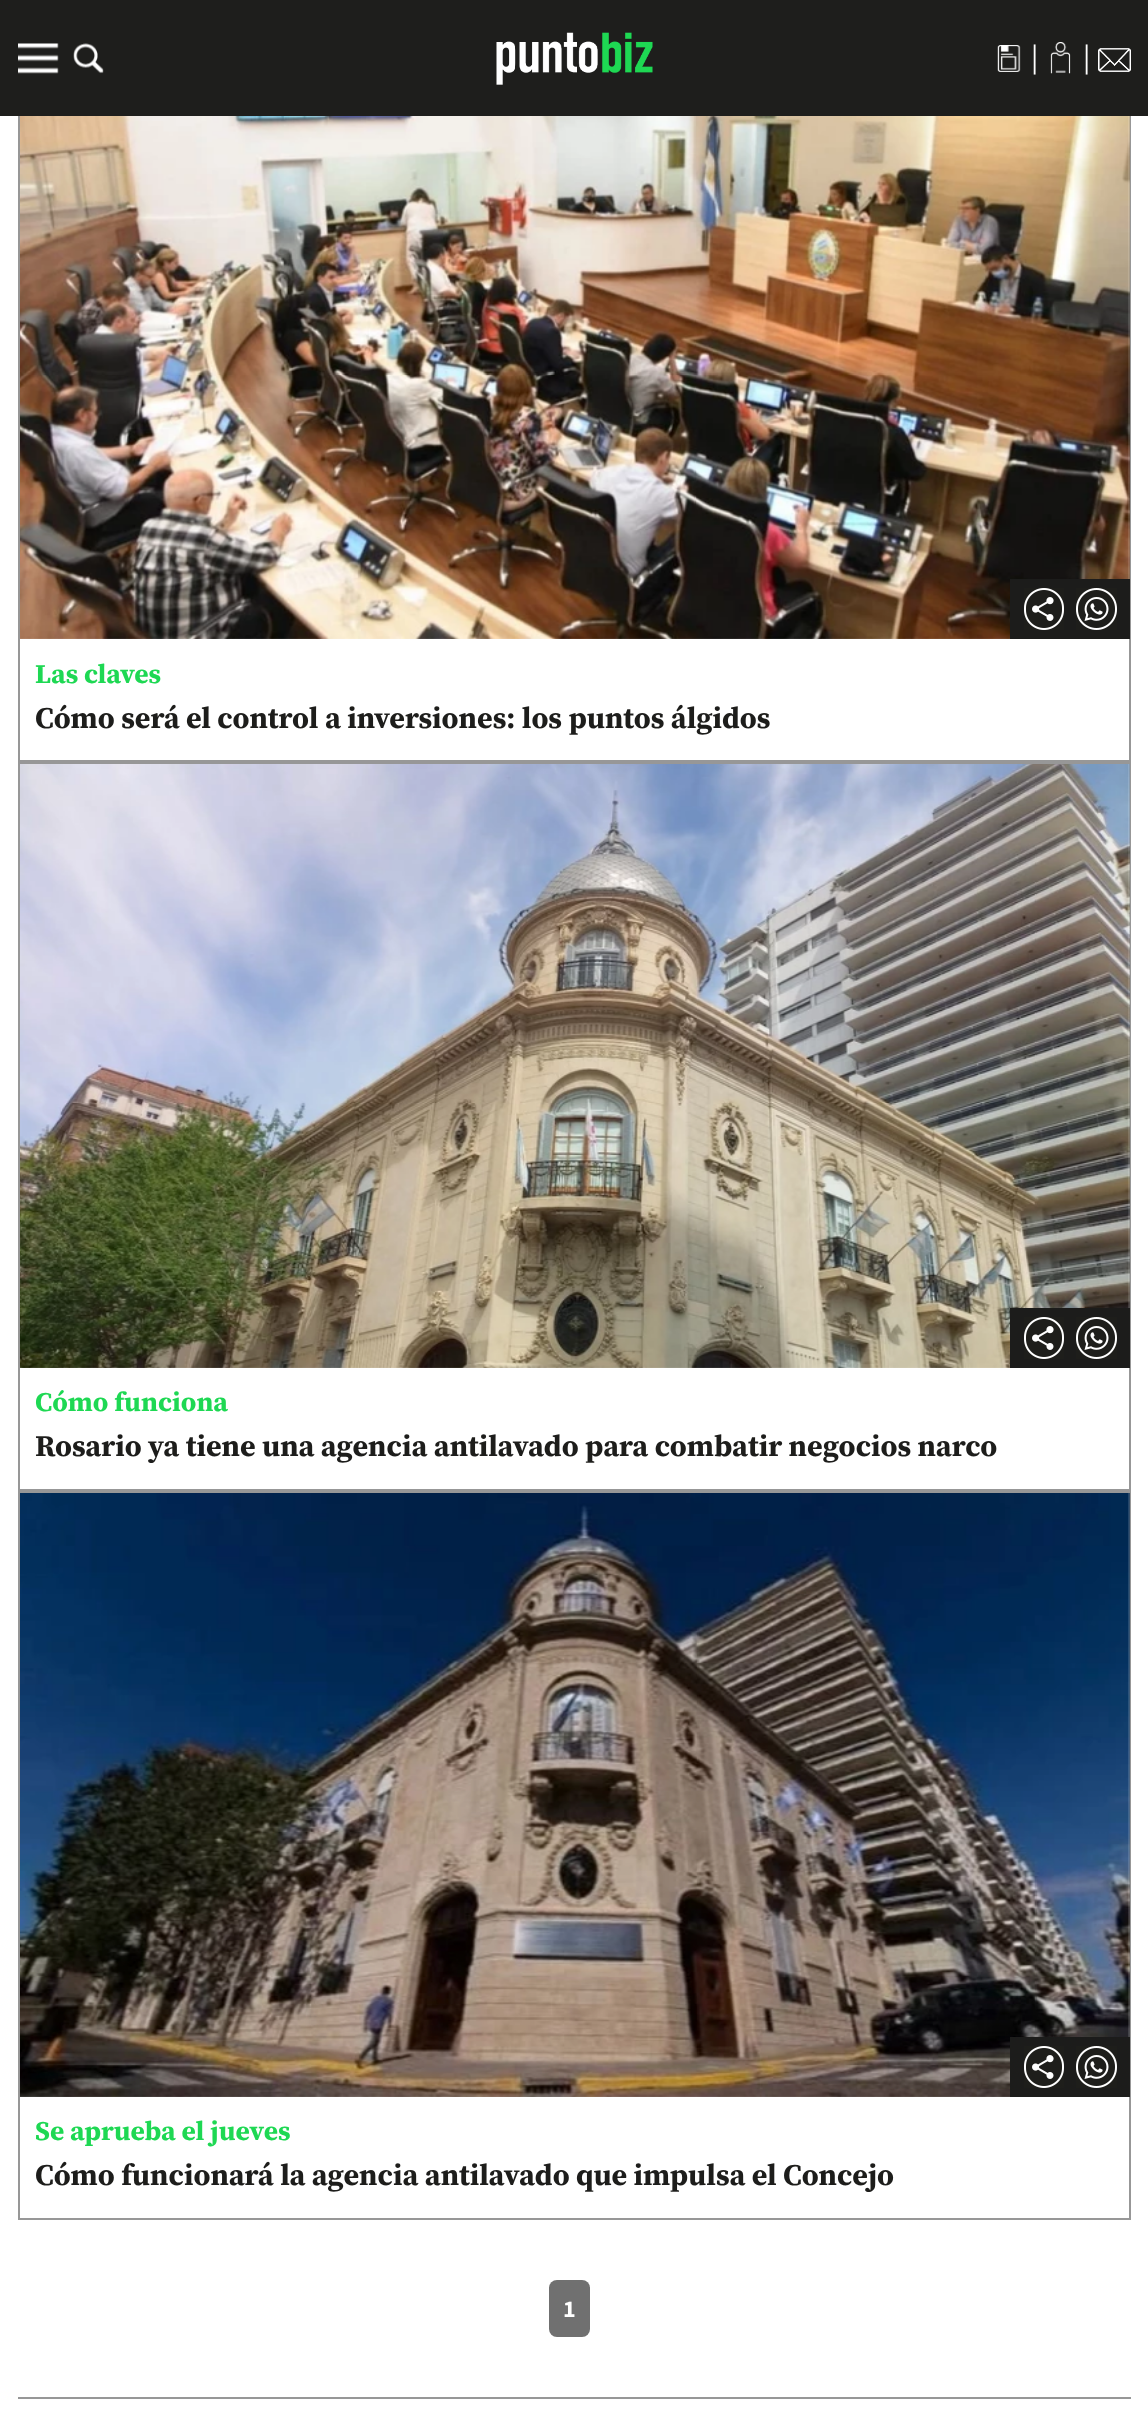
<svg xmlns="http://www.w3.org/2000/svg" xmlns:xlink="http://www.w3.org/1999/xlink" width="1148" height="2422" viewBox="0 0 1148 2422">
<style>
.cls-1{font:30px Source Sans Pro;fill:#ffffff}
.cls-2{font:bold 27px 'Source Serif 4';fill:#1ed853}
.cls-3{font:bold 30px 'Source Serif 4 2';fill:#1d1d1b}
.cls-4{font:bold 24px Source Sans Pro;fill:#ffffff}
</style>
<rect width="100%" height="100%" fill="#ffffff"/>
<rect fill="none" stroke="#979797" stroke-width="2" x="19" y="36" width="1111" height="725"/>
<rect fill="#1e1e1c" x="0" y="0" width="1148" height="116"/>
<image xlink:href="image0.png" x="18" y="43" width="41" height="31"/>
<image xlink:href="image1.png" x="73" y="43" width="31" height="31"/>
<image xlink:href="image2.png" x="496" y="32" width="157" height="53"/>
<image xlink:href="image3.png" x="997" y="45" width="24" height="27"/>
<image xlink:href="image4.png" x="1050" y="42" width="21" height="32"/>
<image xlink:href="image5.png" x="1098" y="48" width="33" height="24"/>
<image xlink:href="image6.png" x="20" y="116" width="1110" height="523"/>
<rect fill="#1c1c1b" x="1010" y="579" width="120" height="60"/>
<image xlink:href="image7.png" x="1024" y="588" width="40" height="42"/>
<image xlink:href="image8.png" x="1076" y="588" width="41" height="42"/>
<rect fill="none" stroke="#979797" stroke-width="2" x="19" y="763" width="1111" height="727"/>
<image xlink:href="image9.png" x="20" y="764" width="1110" height="604"/>
<rect fill="#1c1c1b" x="1010" y="1308" width="120" height="60"/>
<image xlink:href="image7.png" x="1024" y="1317" width="40" height="42"/>
<image xlink:href="image8.png" x="1076" y="1317" width="41" height="42"/>
<rect fill="none" stroke="#979797" stroke-width="2" x="19" y="1492" width="1111" height="727"/>
<image xlink:href="image10.png" x="20" y="1493" width="1110" height="604"/>
<rect fill="#1c1c1b" x="1010" y="2037" width="120" height="60"/>
<image xlink:href="image7.png" x="1024" y="2046" width="40" height="42"/>
<image xlink:href="image8.png" x="1076" y="2046" width="41" height="42"/>
<rect fill="#707070" x="549" y="2280" width="41" height="57" rx="8"/>
<rect fill="#979797" x="18" y="2397" width="1113" height="2"/>
<text class="cls-1" x="1031" y="67">|</text>
<text class="cls-1" x="1083" y="67">|</text>
<text class="cls-2" x="35" y="683">Las claves</text>
<text class="cls-3" x="35" y="728">Cómo será el control a inversiones: los puntos álgidos</text>
<text class="cls-2" x="35" y="1411">Cómo funciona</text>
<text class="cls-3" x="35" y="1456">Rosario ya tiene una agencia antilavado para combatir negocios narco</text>
<text class="cls-2" x="35" y="2140">Se aprueba el jueves</text>
<text class="cls-3" x="35" y="2185">Cómo funcionará la agencia antilavado que impulsa el Concejo</text>
<text class="cls-4" x="563" y="2317">1</text>
</svg>
